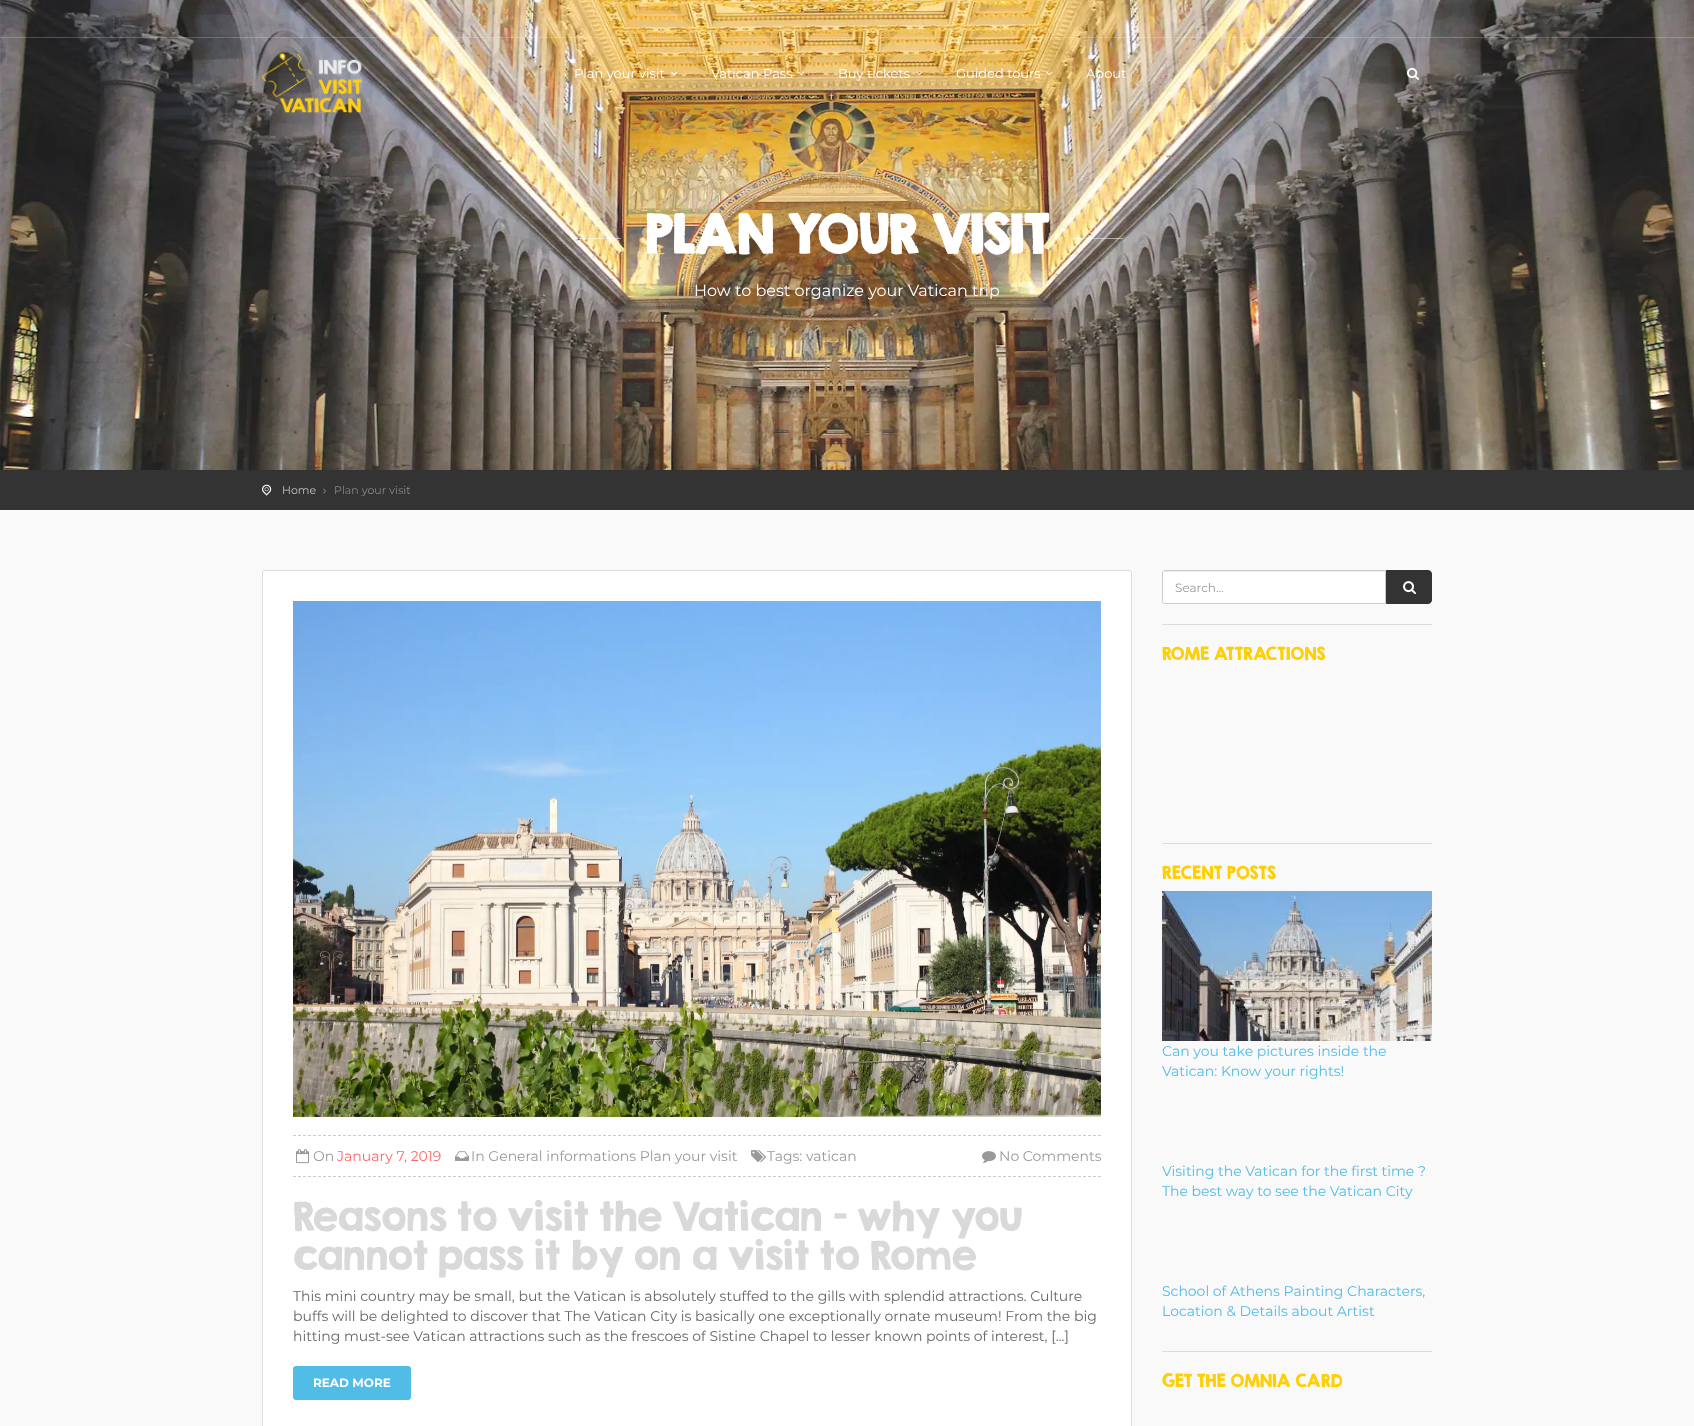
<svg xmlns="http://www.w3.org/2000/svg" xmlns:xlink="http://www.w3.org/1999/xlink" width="1694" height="1426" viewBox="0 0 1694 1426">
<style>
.cls-1{font:100 13px Montserrat;fill:#ffffff}
.cls-2{font:bold 48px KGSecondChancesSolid;fill:#ffffff}
.cls-3{font:100 16px Montserrat;fill:#ffffff}
.cls-4{font:100 11px Montserrat;fill:#c2c2c2}
.cls-5{font:100 11px Montserrat;fill:#888888}
.cls-6{font:100 14px Montserrat;fill:#999999}
.cls-7{font:100 14px Montserrat;fill:#ff6666}
.cls-8{font:36px KGSecondChancesSolid;fill:#d9d9d9}
.cls-9{font:100 14px Montserrat;fill:#666666}
.cls-10{font:bold 12px Montserrat;fill:#ffffff}
.cls-11{font:100 12px Montserrat;fill:#999999}
.cls-12{font:16px KGSecondChancesSolid;fill:#ffce03}
.cls-13{font:100 14px Montserrat;fill:#51bce6}
</style>
<rect width="100%" height="100%" fill="#f9f9f9"/>
<image xlink:href="image0.png" x="0" y="0" width="1694" height="470"/>
<rect fill="#ffffff" fill-opacity="0.2" x="0" y="37" width="1694" height="1"/>
<image xlink:href="image1.png" x="262" y="53" width="100" height="61"/>
<image xlink:href="image2.png" x="671" y="71" width="7" height="5"/>
<image xlink:href="image3.png" x="798" y="71" width="7" height="5"/>
<image xlink:href="image4.png" x="916" y="71" width="7" height="5"/>
<image xlink:href="image5.png" x="1046" y="71" width="7" height="5"/>
<image xlink:href="image6.png" x="1407" y="67" width="12" height="13"/>
<rect fill="#ffffff" fill-opacity="0.5" x="571" y="238" width="50" height="1"/>
<rect fill="#ffffff" fill-opacity="0.5" x="1073" y="238" width="50" height="1"/>
<rect fill="#333333" x="0" y="470" width="1694" height="40"/>
<image xlink:href="image7.png" x="262" y="484" width="10" height="12"/>
<image xlink:href="image8.png" x="323" y="488" width="3" height="6"/>
<rect fill="#ffffff" stroke="#dddddd" x="262.5" y="570.5" width="869" height="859" rx="2.5"/>
<image xlink:href="image9.png" x="293" y="601" width="808" height="516"/>
<path fill="none" stroke="#cccccc" stroke-dasharray="3 2" d="M293 1135.5H1101"/>
<path fill="none" stroke="#cccccc" stroke-dasharray="3 2" d="M293 1176.5H1101"/>
<image xlink:href="image10.png" x="296" y="1149" width="13" height="15"/>
<image xlink:href="image11.png" x="455" y="1151" width="14" height="10"/>
<image xlink:href="image12.png" x="751" y="1150" width="15" height="12"/>
<image xlink:href="image13.png" x="982" y="1151" width="14" height="12"/>
<rect fill="#51bce6" x="293" y="1366" width="118" height="34" rx="3"/>
<path fill="#ffffff" d="M1165 570H1386V604H1165C1163.5 604 1162 602.5 1162 601V573C1162 571.5 1163.5 570 1165 570Z"/>
<path fill="#ececec" d="M1165 572H1385V571H1165L1164 572L1163 574C1163 573 1164 572 1165 572Z"/>
<path fill="none" stroke="#cccccc" d="M1165 570.5H1385.5V603.5H1165C1163.5 603.5 1162.5 602.5 1162.5 601V573C1162.5 571.5 1163.5 570.5 1165 570.5Z"/>
<path fill="#333333" stroke="#333333" d="M1386.5 570.5H1428C1430 570.5 1431.5 572 1431.5 574V600C1431.5 602 1430 603.5 1428 603.5H1386.5Z"/>
<image xlink:href="image14.png" x="1403" y="581" width="13" height="14"/>
<rect fill="#dddddd" x="1162" y="624" width="270" height="1"/>
<rect fill="#dddddd" x="1162" y="843" width="270" height="1"/>
<image xlink:href="image15.png" x="1162" y="891" width="270" height="150"/>
<rect fill="#dddddd" x="1162" y="1351" width="270" height="1"/>
<text class="cls-1" x="574" y="78">Plan your visit</text>
<text class="cls-1" x="711" y="78">Vatican Pass</text>
<text class="cls-1" x="838" y="78">Buy tickets</text>
<text class="cls-1" x="956" y="78">Guided tours</text>
<text class="cls-1" x="1086" y="78">About</text>
<text class="cls-2" x="645" y="254">PLAN YOUR VISIT</text>
<text class="cls-3" x="694" y="296">How to best organize your Vatican trip</text>
<text class="cls-4" x="282" y="494">Home</text>
<text class="cls-5" x="334" y="494">Plan your visit</text>
<text class="cls-6" x="313" y="1161">On</text>
<text class="cls-7" x="337" y="1161">January 7, 2019</text>
<text class="cls-6" x="471" y="1161">In General informations Plan your visit</text>
<text class="cls-6" x="767" y="1161">Tags: vatican</text>
<text class="cls-6" x="999" y="1161">No Comments</text>
<text class="cls-8"><tspan x="293" y="1231">Reasons to visit the Vatican – why you</tspan><tspan x="293" y="1270">cannot pass it by on a visit to Rome</tspan></text>
<text class="cls-9"><tspan x="293" y="1301">This mini country may be small, but the Vatican is absolutely stuffed to the gills with splendid attractions. Culture</tspan><tspan x="293" y="1321">buffs will be delighted to discover that The Vatican City is basically one exceptionally ornate museum! From the big</tspan><tspan x="293" y="1341">hitting must-see Vatican attractions such as the frescoes of Sistine Chapel to lesser known points of interest, [...]</tspan></text>
<text class="cls-10" x="313" y="1387">READ MORE</text>
<text class="cls-11" x="1175" y="592">Search...</text>
<text class="cls-12" x="1162" y="660">ROME ATTRACTIONS</text>
<text class="cls-12" x="1162" y="879">RECENT POSTS</text>
<text class="cls-13"><tspan x="1162" y="1056">Can you take pictures inside the</tspan><tspan x="1162" y="1076">Vatican: Know your rights!</tspan></text>
<text class="cls-13"><tspan x="1162" y="1176">Visiting the Vatican for the first time ?</tspan><tspan x="1162" y="1196">The best way to see the Vatican City</tspan></text>
<text class="cls-13"><tspan x="1162" y="1296">School of Athens Painting Characters,</tspan><tspan x="1162" y="1316">Location &amp; Details about Artist</tspan></text>
<text class="cls-12" x="1162" y="1387">GET THE OMNIA CARD</text>
</svg>
